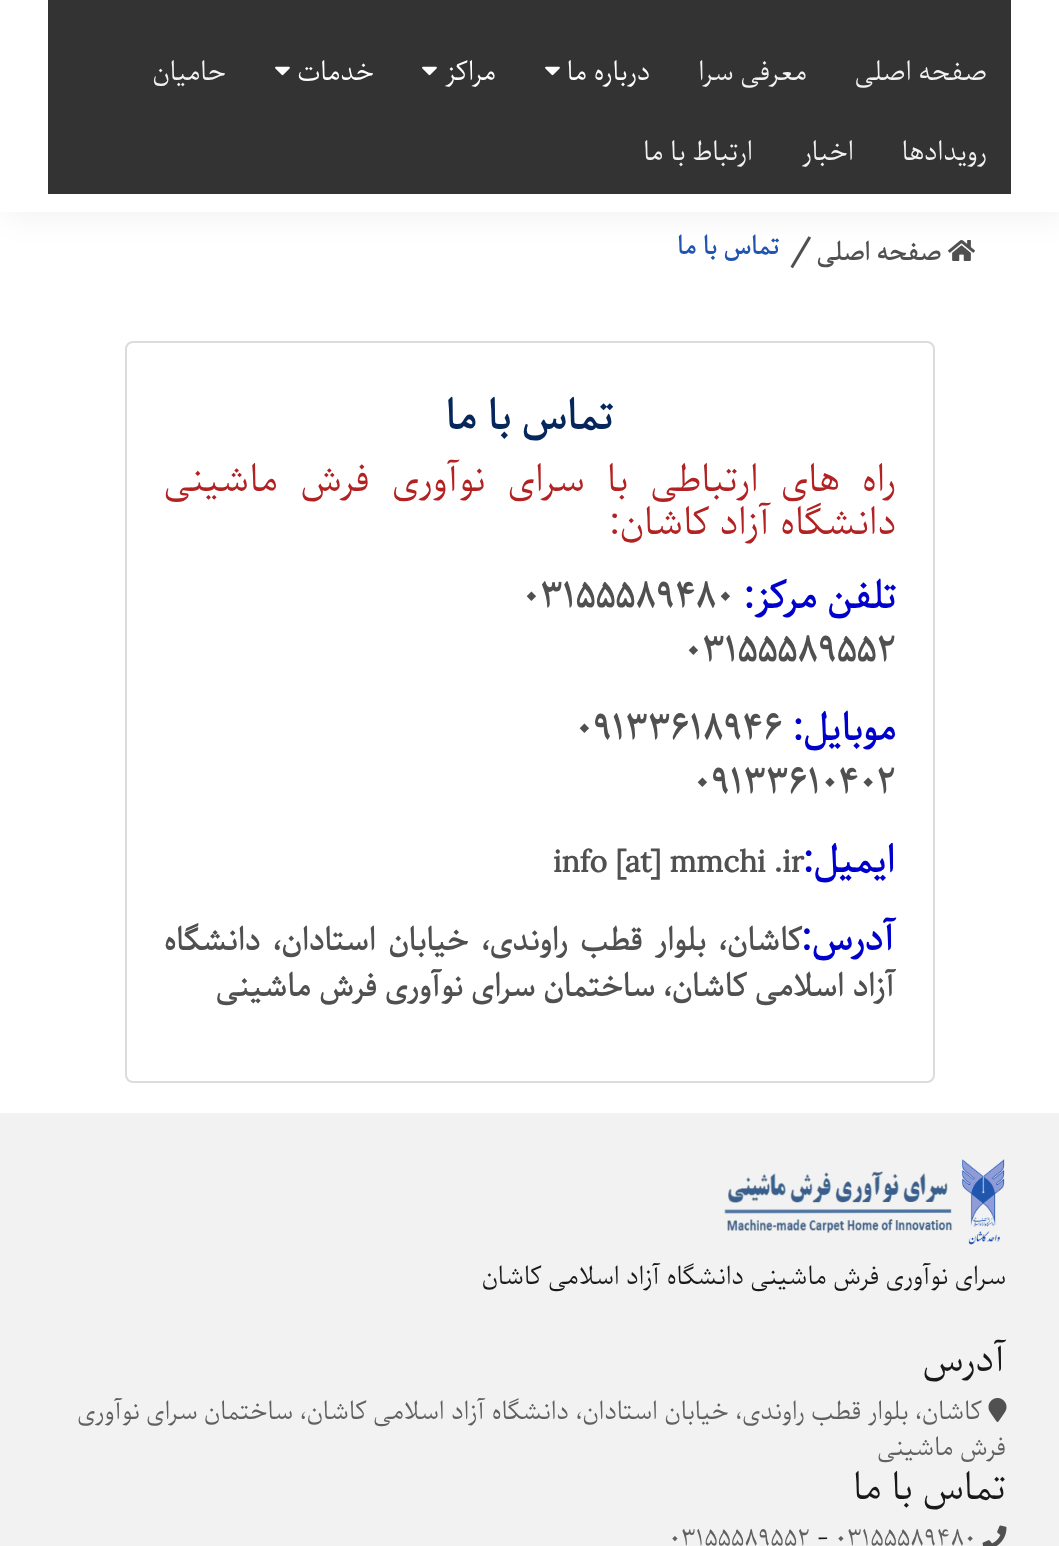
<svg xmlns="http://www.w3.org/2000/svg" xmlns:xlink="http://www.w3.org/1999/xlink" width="1059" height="1546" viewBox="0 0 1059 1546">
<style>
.cls-1{font:25.5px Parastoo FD;direction:rtl;fill:#f2f2f2}
.cls-2{font:25.5px Parastoo FD;direction:rtl;fill:#ffffff}
.cls-3{font:bold 24px Parastoo FD;direction:rtl;fill:#505050}
.cls-4{font:bold 30px Parastoo FD;fill:#505050}
.cls-5{font:bold 24px Parastoo FD;direction:rtl;fill:#2055b0}
.cls-6{font:bold 39.5px Parastoo FD;direction:rtl;fill:#06275b}
.cls-7{font:36px Parastoo FD;direction:rtl;fill:#b22222}
.cls-8{font:bold 36px Parastoo FD;direction:rtl;fill:#0000cd}
.cls-9{font:bold 36px Parastoo FD;fill:#505050}
.cls-10{font:bold 30px Parastoo FD;direction:rtl;fill:#505050}
.cls-11{font:24px Parastoo FD;direction:rtl;fill:#191919}
.cls-12{font:36px Parastoo FD;direction:rtl;fill:#191919}
.cls-13{font:24px Parastoo FD;direction:rtl;fill:#625f5f}
.cls-14{font:24px Parastoo FD;fill:#625f5f}
.cls-15{font:24px Parastoo FD;fill:#191919}
</style>
<rect width="100%" height="100%" fill="#ffffff"/>
<rect fill="#000011" fill-opacity="0.05" filter="blur(15px)" x="6" y="-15" width="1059" height="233"/>
<rect fill="#ffffff" x="0" y="0" width="1059" height="212"/>
<rect fill="#333333" x="48" y="0" width="963" height="194"/>
<image xlink:href="image0.png" x="545" y="66" width="15" height="10"/>
<image xlink:href="image0.png" x="422" y="66" width="15" height="10"/>
<image xlink:href="image0.png" x="275" y="66" width="15" height="10"/>
<image xlink:href="image1.png" x="948" y="240" width="27" height="21"/>
<rect fill="none" stroke="#dcdcdc" stroke-width="2" x="126" y="342" width="808" height="740" rx="7"/>
<rect fill="#f2f2f2" x="0" y="1113" width="1059" height="433"/>
<image xlink:href="image2.png" x="724" y="1159" width="281" height="86"/>
<image xlink:href="image3.png" x="988" y="1398" width="19" height="24"/>
<image xlink:href="image4.png" x="982" y="1525" width="25" height="21"/>
<text class="cls-1" x="987" y="80">صفحه اصلی</text>
<text class="cls-1" x="807" y="80">معرفی سرا</text>
<text class="cls-2" x="650" y="80">درباره ما</text>
<text class="cls-2" x="496" y="80">مراکز</text>
<text class="cls-2" x="374" y="80">خدمات</text>
<text class="cls-1" x="226" y="80">حامیان</text>
<text class="cls-1" x="987" y="160">رویدادها</text>
<text class="cls-1" x="854" y="160">اخبار</text>
<text class="cls-1" x="753" y="160">ارتباط با ما</text>
<text class="cls-3" x="941" y="260">صفحه اصلی</text>
<text class="cls-4" x="790" y="260">/</text>
<text class="cls-5" x="779" y="254">تماس با ما</text>
<text class="cls-6" x="613" y="429">تماس با ما</text>
<text class="cls-7"><tspan x="896" y="491" word-spacing="12.5">راه های ارتباطی با سرای نوآوری فرش ماشینی</tspan><tspan x="896" y="534">دانشگاه آزاد کاشان:</tspan></text>
<text class="cls-8" x="896" y="608">تلفن مرکز:</text>
<text class="cls-9" x="522" y="608">03155589480</text>
<text class="cls-9" x="684" y="662">03155589552</text>
<text class="cls-8" x="896" y="740">موبایل:</text>
<text class="cls-9" x="575" y="740">09133618946</text>
<text class="cls-9" x="693" y="794">09133610402</text>
<text class="cls-8" x="895" y="872">ایمیل:</text>
<text class="cls-4" x="553" y="872">info [at] mmchi .ir</text>
<text class="cls-8" x="895" y="950">آدرس:</text>
<text class="cls-10" x="802" y="950" word-spacing="4.25">کاشان، بلوار قطب راوندی، خیابان استادان، دانشگاه</text>
<text class="cls-10" x="895" y="996">آزاد اسلامی کاشان، ساختمان سرای نوآوری فرش ماشینی</text>
<text class="cls-11" x="1006" y="1284">سرای نوآوری فرش ماشینی دانشگاه آزاد اسلامی کاشان</text>
<text class="cls-12" x="1006" y="1371">آدرس</text>
<text class="cls-13" x="982" y="1419">کاشان، بلوار قطب راوندی، خیابان استادان، دانشگاه آزاد اسلامی کاشان، ساختمان سرای نوآوری</text>
<text class="cls-13" x="1006" y="1455">فرش ماشینی</text>
<text class="cls-12" x="1006" y="1499">تماس با ما</text>
<text class="cls-14" x="835" y="1546">03155589480</text>
<text class="cls-15" x="817" y="1546">-</text>
<text class="cls-14" x="669" y="1546">03155589552</text>
</svg>
